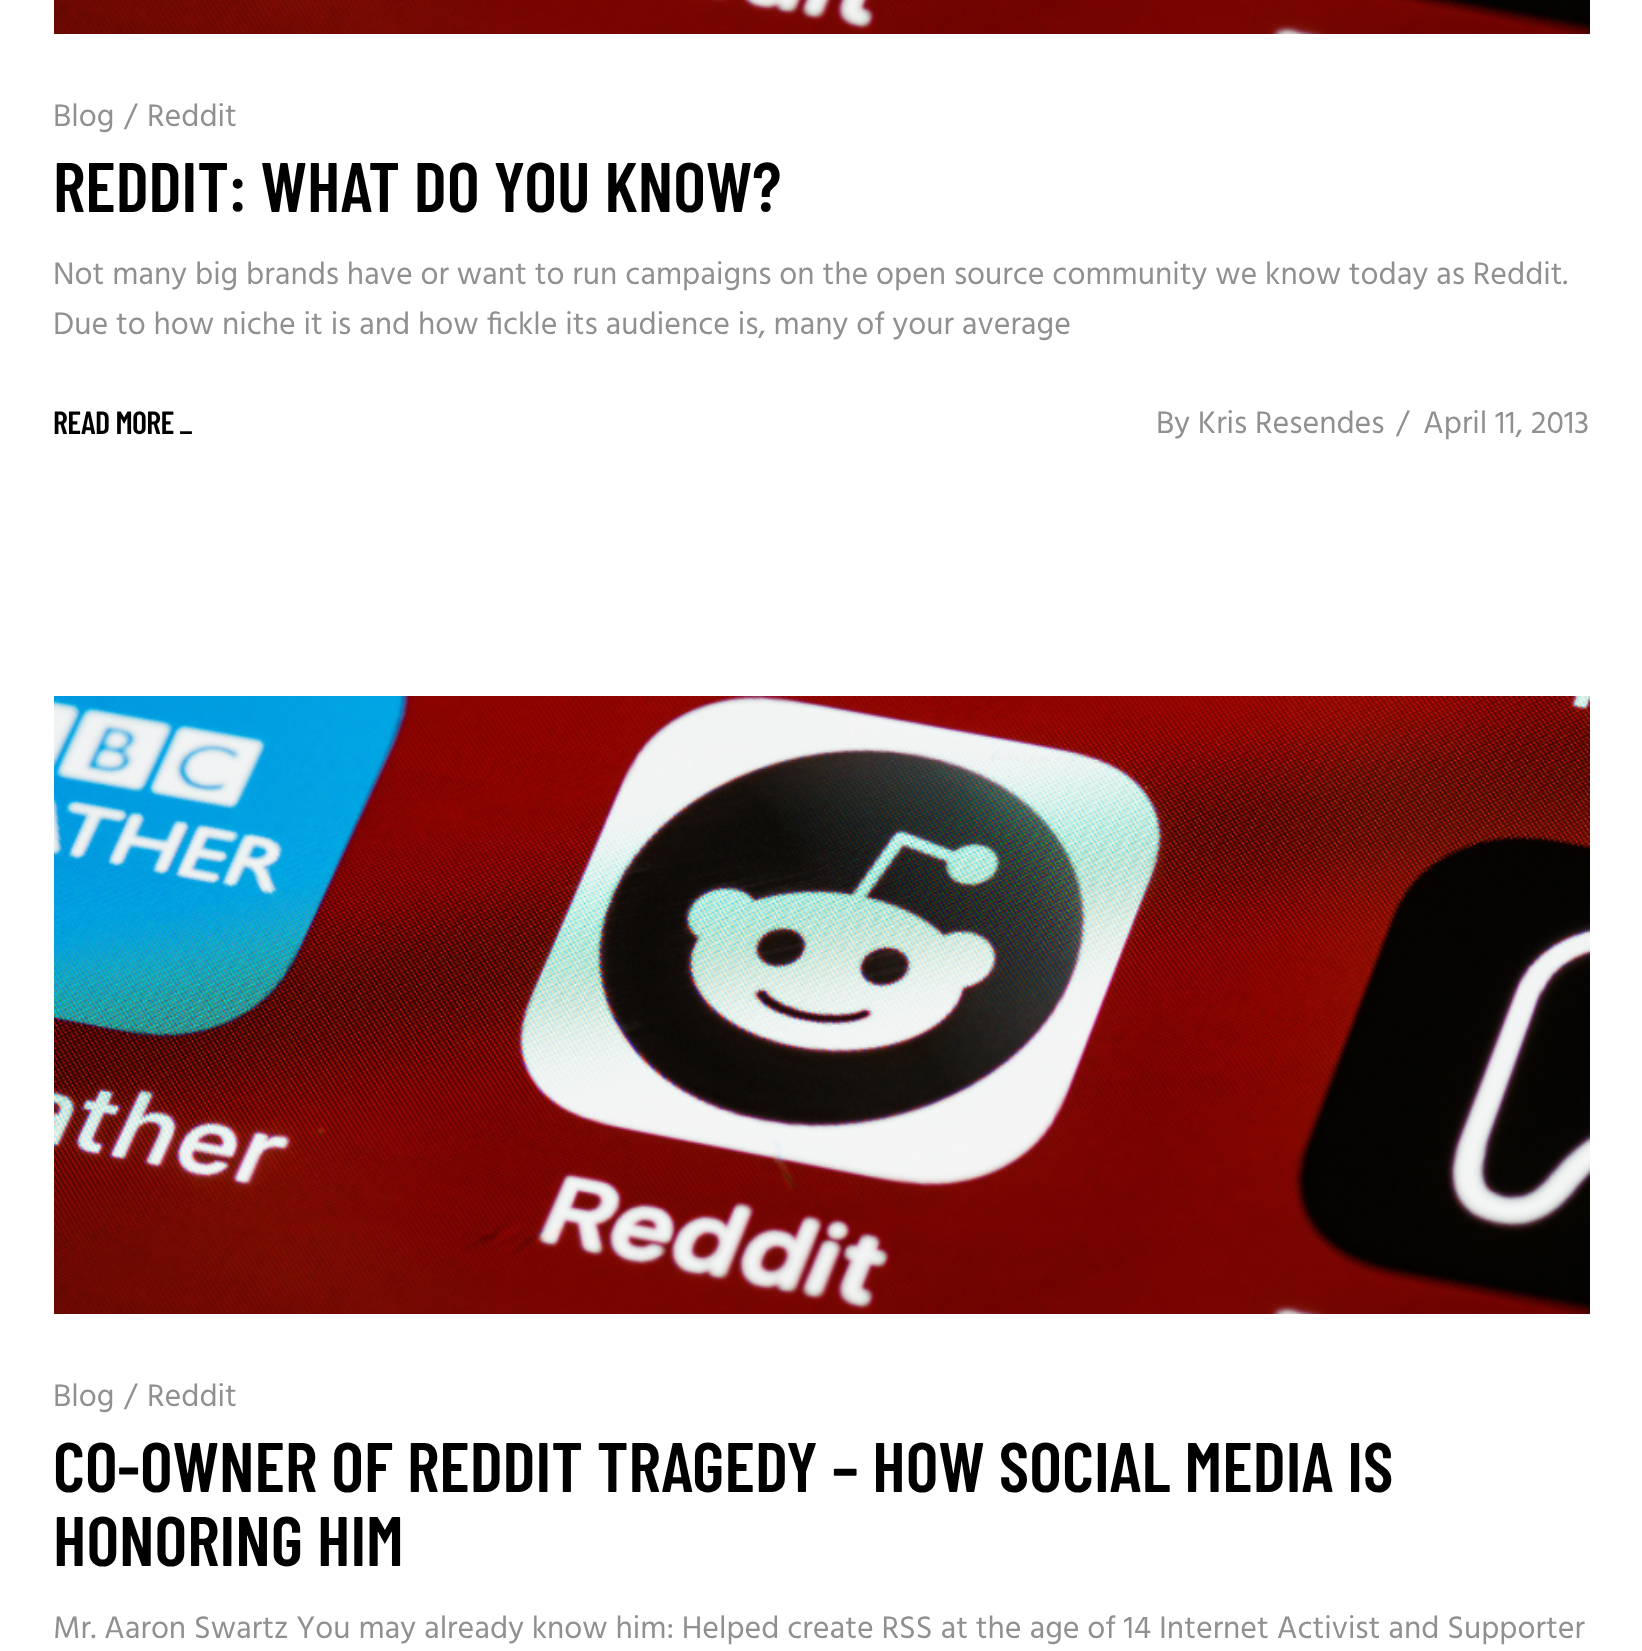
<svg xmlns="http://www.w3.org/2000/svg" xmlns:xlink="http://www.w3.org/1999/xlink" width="1642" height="1651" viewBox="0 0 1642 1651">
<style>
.cls-1{font:32px Hind;fill:#909090}
.cls-2{font:600 70px Barlow Condensed;fill:#000000}
.cls-3{font:600 32px Barlow Condensed;letter-spacing:-0.6px;fill:#000000}
</style>
<rect width="100%" height="100%" fill="#ffffff"/>
<image xlink:href="image0.png" x="54" y="0" width="1536" height="34"/>
<image xlink:href="image1.png" x="54" y="696" width="1536" height="618"/>
<text class="cls-1" x="53" y="126">Blog</text>
<text class="cls-1" x="124" y="126">/</text>
<text class="cls-1" x="147" y="126">Reddit</text>
<text class="cls-2" x="53" y="212">REDDIT: WHAT DO YOU KNOW?</text>
<text class="cls-1"><tspan x="53" y="284">Not many big brands have or want to run campaigns on the open source community we know today as Reddit.</tspan><tspan x="53" y="334">Due to how niche it is and how fickle its audience is, many of your average</tspan></text>
<text class="cls-3" x="53" y="434">READ MORE _</text>
<text class="cls-1" x="1156" y="433">By Kris Resendes</text>
<text class="cls-1" x="1396" y="433">/</text>
<text class="cls-1" x="1423" y="433">April 11, 2013</text>
<text class="cls-1" x="53" y="1406">Blog</text>
<text class="cls-1" x="124" y="1406">/</text>
<text class="cls-1" x="147" y="1406">Reddit</text>
<text class="cls-2"><tspan x="53" y="1492">CO-OWNER OF REDDIT TRAGEDY – HOW SOCIAL MEDIA IS</tspan><tspan x="53" y="1566">HONORING HIM</tspan></text>
<text class="cls-1" x="53" y="1638">Mr. Aaron Swartz You may already know him: Helped create RSS at the age of 14 Internet Activist and Supporter</text>
</svg>
